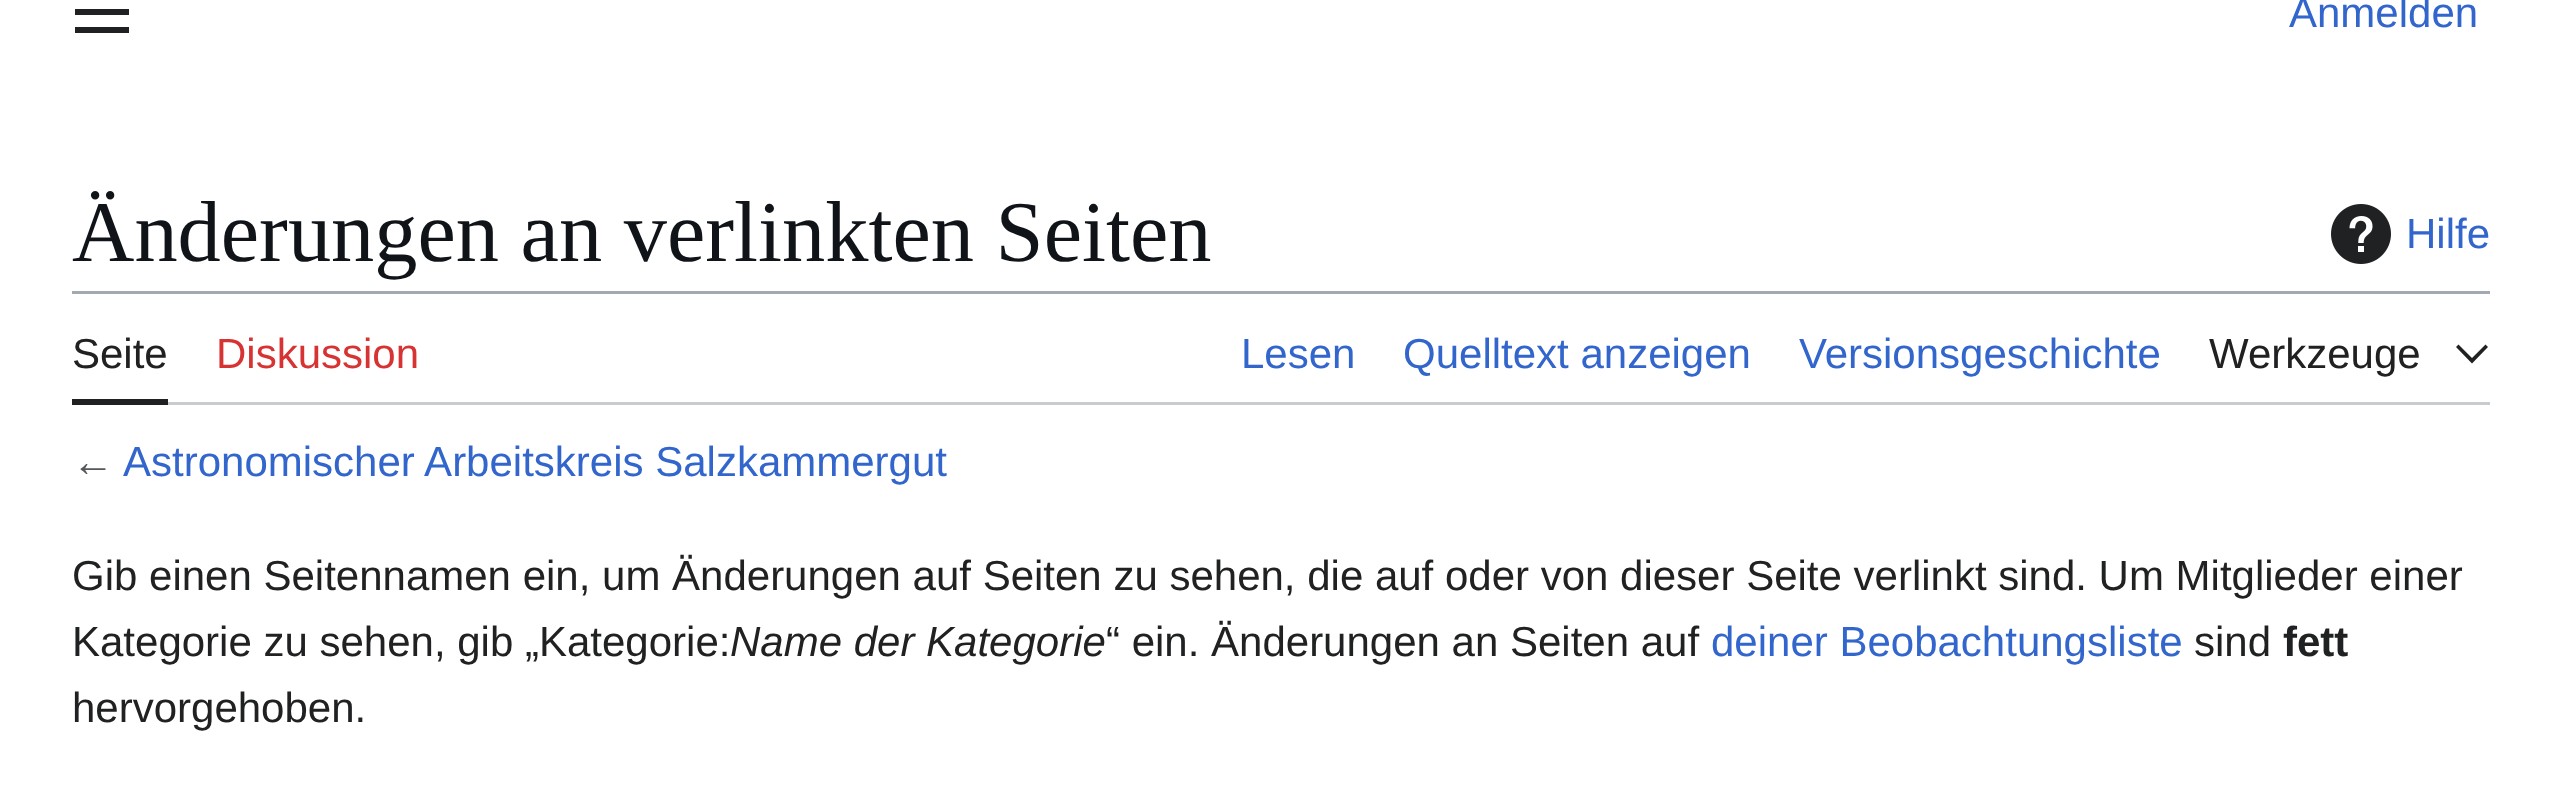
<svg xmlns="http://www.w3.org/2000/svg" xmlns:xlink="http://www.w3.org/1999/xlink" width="2560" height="785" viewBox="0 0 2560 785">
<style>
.cls-1{font:42px Liberation Sans;fill:#3366cc}
.cls-2{font:86.4px Liberation Serif;fill:#101418}
.cls-3{font:42px Liberation Sans;fill:#202122}
.cls-4{font:42px Liberation Sans;fill:#d73333}
.cls-5{font:42px Liberation Sans;fill:#54595d}
.cls-6{font:italic 42px Liberation Sans;fill:#202122}
.cls-7{font:bold 42px Liberation Sans;fill:#202122}
</style>
<rect width="100%" height="100%" fill="#ffffff"/>
<image xlink:href="image0.png" x="75" y="9" width="54" height="24"/>
<image xlink:href="image1.png" x="2331" y="204" width="60" height="60"/>
<rect fill="#a2a9b1" x="72" y="291" width="2418" height="3"/>
<rect fill="#c8ccd1" x="168" y="402" width="2322" height="3"/>
<rect fill="#202122" x="72" y="399" width="96" height="6"/>
<path fill="#202122" d="M2485.5 344.5L2472 358L2458.5 344.5L2456 347L2472 363.5L2488 347Z"/>
<text class="cls-1" x="2289" y="27">Anmelden</text>
<text class="cls-2" x="72" y="261">Änderungen an verlinkten Seiten</text>
<text class="cls-1" x="2406" y="248">Hilfe</text>
<text class="cls-3" x="72" y="368">Seite</text>
<text class="cls-4" x="216" y="368">Diskussion</text>
<text class="cls-1" x="1241" y="368">Lesen</text>
<text class="cls-1" x="1403" y="368">Quelltext anzeigen</text>
<text class="cls-1" x="1799" y="368">Versionsgeschichte</text>
<text class="cls-3" x="2209" y="368">Werkzeuge</text>
<text class="cls-5" x="72" y="476">←</text>
<text class="cls-1" x="123" y="476">Astronomischer Arbeitskreis Salzkammergut</text>
<text class="cls-3"><tspan x="72" y="590">Gib einen Seitennamen ein, um Änderungen auf Seiten zu sehen, die auf oder von dieser Seite verlinkt sind. Um Mitglieder einer</tspan><tspan x="72" y="656">Kategorie zu sehen, gib „Kategorie:</tspan></text>
<text class="cls-6" x="730" y="656">Name der Kategorie</text>
<text class="cls-3" x="1106" y="656">“ ein. Änderungen an Seiten auf</text>
<text class="cls-1" x="1711" y="656">deiner Beobachtungsliste</text>
<text class="cls-3" x="2194" y="656">sind</text>
<text class="cls-7" x="2283" y="656">fett</text>
<text class="cls-3" x="72" y="722">hervorgehoben.</text>
</svg>
